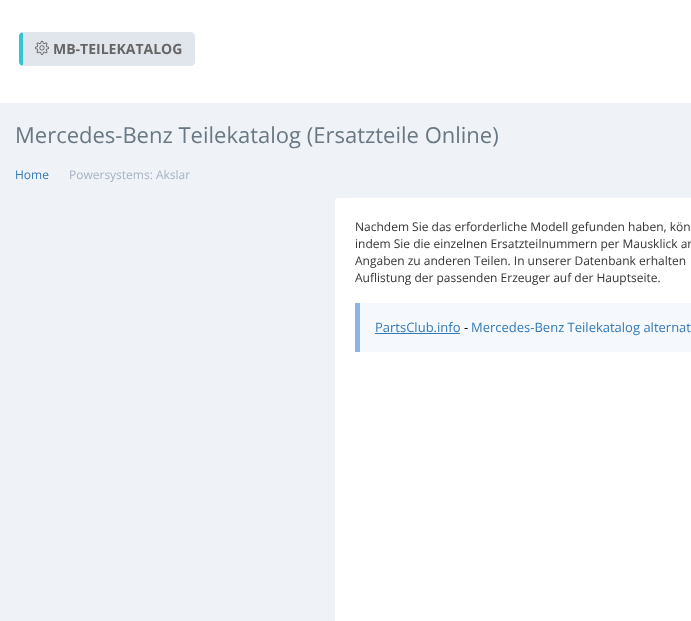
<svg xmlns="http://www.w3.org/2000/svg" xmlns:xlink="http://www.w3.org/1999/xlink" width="691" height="621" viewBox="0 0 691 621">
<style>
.cls-1{font:bold 14px Open Sans;fill:#666666}
.cls-2{font:22px Open Sans;fill:#697882}
.cls-3{font:12px Open Sans;fill:#337ab7}
.cls-4{font:12px Open Sans;fill:#a7b2c0}
.cls-5{font:12px Open Sans;fill:#333333}
.cls-6{font:13px Open Sans;fill:#337ab7}
.cls-7{font:13px Open Sans;fill:#010407}
</style>
<rect width="100%" height="100%" fill="#ffffff"/>
<path fill="#e1e5ec" d="M23 33H191C193 33 194 34 194 36V62C194 64 193 65 191 65H23Z"/>
<path fill="#e1e5ec" d="M23 32L21 33H23H191L193 34L194 33L191 32Z"/>
<path fill="#e1e5ec" d="M195 62V36C195 35 194.5 34 194 33L193 34C194 34 194 35 194 36V62C194 63 194 64 193 64L194 65C194.5 64 195 63 195 62Z"/>
<path fill="#e1e5ec" d="M23 66H191L194 65L193 64L191 65H23H21Z"/>
<path fill="#32c5d2" d="M23 33L21 32.5C20 33.5 19 34.5 19 36V62C19 63.5 20 64.5 21 65.5L23 65Z"/>
<image xlink:href="image0.png" x="35" y="40" width="14" height="15"/>
<rect fill="#eff3f8" x="0" y="103" width="691" height="518"/>
<rect fill="#ffffff" x="335" y="198" width="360" height="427" rx="4"/>
<rect fill="#f5f8fd" x="360" y="303" width="331" height="49"/>
<rect fill="#8bb4e7" x="355" y="303" width="5" height="49"/>
<rect fill="#337ab7" x="375" y="333" width="85" height="1"/>
<text class="cls-1" x="53" y="54">MB-TEILEKATALOG</text>
<text class="cls-2" x="15" y="143">Mercedes-Benz Teilekatalog (Ersatzteile Online)</text>
<text class="cls-3" x="15" y="179">Home</text>
<text class="cls-4" x="69" y="179">Powersystems: Akslar</text>
<text class="cls-5"><tspan x="355" y="231">Nachdem Sie das erforderliche Modell gefunden haben, kön</tspan><tspan x="355" y="248">indem Sie die einzelnen Ersatzteilnummern per Mausklick an</tspan><tspan x="355" y="265">Angaben zu anderen Teilen. In unserer Datenbank erhalten</tspan><tspan x="355" y="282">Auflistung der passenden Erzeuger auf der Hauptseite.</tspan></text>
<text class="cls-6" x="375" y="332">PartsClub.info</text>
<text class="cls-7" x="464" y="332">-</text>
<text class="cls-6" x="471" y="332">Mercedes-Benz Teilekatalog alternat</text>
</svg>
